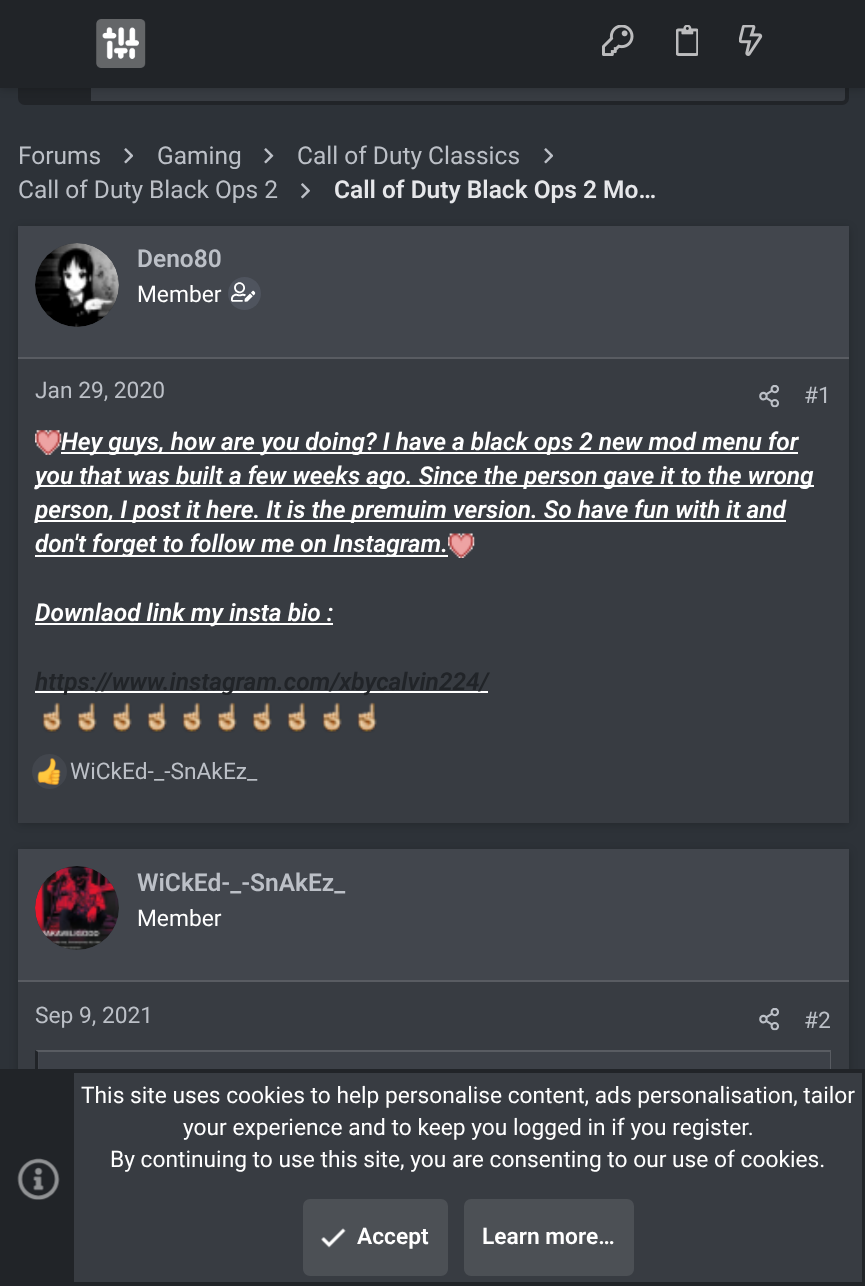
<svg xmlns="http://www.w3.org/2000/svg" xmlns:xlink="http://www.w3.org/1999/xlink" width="865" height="1286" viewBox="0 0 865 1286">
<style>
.cls-1{font:24.5px Roboto;fill:#bcc0c7}
.cls-2{font:600 24.5px Roboto;fill:#e6e7ea}
.cls-3{font:600 24.5px Roboto;fill:#bcc0c7}
.cls-4{font:22.75px Roboto;fill:#ffffff}
.cls-5{font:22.75px Roboto;fill:#bcc0c7}
.cls-6{font:italic 600 24.5px Roboto;fill:#ffffff}
.cls-7{font:italic 600 24.5px Roboto;fill:#212428}
.cls-8{font:600 22.75px Roboto;fill:#ffffff}
</style>
<rect width="100%" height="100%" fill="#2d3238"/>
<rect fill="#383c42" stroke="#212428" stroke-width="4" x="20" y="-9" width="827" height="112" rx="5"/>
<rect fill="#212428" x="22" y="88" width="69" height="13"/>
<rect fill="#000000" fill-opacity="0.2" filter="blur(4.5px)" x="0" y="2" width="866" height="87"/>
<rect fill="#212428" x="0" y="0" width="865" height="88"/>
<image xlink:href="image0.png" x="96" y="19" width="50" height="49"/>
<image xlink:href="image1.png" x="602" y="25" width="32" height="31"/>
<image xlink:href="image2.png" x="676" y="25" width="22" height="31"/>
<image xlink:href="image3.png" x="739" y="25" width="24" height="31"/>
<image xlink:href="image4.png" x="124" y="148" width="9" height="16"/>
<image xlink:href="image5.png" x="264" y="148" width="10" height="16"/>
<image xlink:href="image4.png" x="544" y="148" width="9" height="16"/>
<image xlink:href="image6.png" x="301" y="183" width="9" height="16"/>
<rect fill="#000000" fill-opacity="0.2" filter="blur(4.5px)" x="18" y="228" width="831" height="596"/>
<rect fill="#383c42" x="18" y="359" width="831" height="464"/>
<rect fill="#42464d" x="18" y="226" width="831" height="131"/>
<rect fill="#595c62" x="18" y="357" width="831" height="2"/>
<circle fill="#383c42" cx="77" cy="285" r="42"/>
<image xlink:href="image7.png" x="35" y="243" width="84" height="84"/>
<circle fill="#4f545e" cx="244.5" cy="293.5" r="16.5"/>
<image xlink:href="image8.png" x="231" y="282" width="25" height="20"/>
<image xlink:href="image9.png" x="759" y="385" width="20" height="23"/>
<image xlink:href="image10.png" x="35" y="430" width="27" height="25"/>
<rect fill="#ffffff" x="61" y="452" width="737" height="2"/>
<rect fill="#ffffff" x="35" y="485" width="779" height="2"/>
<rect fill="#ffffff" x="35" y="520" width="751" height="2"/>
<rect fill="#ffffff" x="35" y="555" width="413" height="2"/>
<image xlink:href="image11.png" x="448" y="533" width="27" height="25"/>
<rect fill="#ffffff" x="35" y="623" width="298" height="2"/>
<rect fill="#ffffff" x="35" y="691" width="453" height="2"/>
<image xlink:href="image12.png" x="42" y="702" width="20" height="31"/>
<image xlink:href="image12.png" x="77" y="702" width="20" height="31"/>
<image xlink:href="image13.png" x="112" y="702" width="20" height="31"/>
<image xlink:href="image12.png" x="147" y="702" width="20" height="31"/>
<image xlink:href="image13.png" x="182" y="702" width="20" height="31"/>
<image xlink:href="image13.png" x="217" y="702" width="20" height="31"/>
<image xlink:href="image12.png" x="252" y="702" width="20" height="31"/>
<image xlink:href="image12.png" x="287" y="702" width="20" height="31"/>
<image xlink:href="image12.png" x="322" y="702" width="20" height="31"/>
<image xlink:href="image13.png" x="357" y="702" width="20" height="31"/>
<circle fill="#42464d" cx="49.5" cy="771.5" r="17.5"/>
<image xlink:href="image14.png" x="37" y="758" width="24" height="27"/>
<rect fill="#000000" fill-opacity="0.2" filter="blur(4.5px)" x="18" y="851" width="831" height="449"/>
<rect fill="#383c42" x="18" y="982" width="831" height="87"/>
<rect fill="#42464d" x="18" y="849" width="831" height="131"/>
<rect fill="#595c62" x="18" y="980" width="831" height="2"/>
<circle fill="#383c42" cx="77" cy="908" r="42"/>
<image xlink:href="image15.png" x="35" y="866" width="84" height="84"/>
<image xlink:href="image9.png" x="759" y="1008" width="20" height="23"/>
<rect fill="#42464d" x="35" y="1050" width="796" height="19"/>
<path fill="#595c62" d="M35 1050H831L830 1052H38Z"/>
<path fill="#ffffff" fill-opacity="0.12" d="M831 1050V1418L830 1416V1052Z"/>
<path fill="#212428" d="M35 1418V1050L38 1052V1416Z"/>
<rect fill="#3d4148" x="39" y="1052" width="791" height="17"/>
<rect fill="#383c42" x="74" y="1073" width="788" height="209"/>
<rect fill="none" stroke="#212428" stroke-width="4" x="2" y="1071" width="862" height="213"/>
<rect fill="#212428" x="4" y="1073" width="70" height="209"/>
<image xlink:href="image16.png" x="17" y="1158" width="43" height="42"/>
<rect fill="#4c5055" x="303" y="1199" width="145" height="77" rx="7"/>
<image xlink:href="image17.png" x="321" y="1228" width="25" height="20"/>
<rect fill="#4c5055" x="464" y="1199" width="170" height="77" rx="7"/>
<text class="cls-1" x="18" y="164">Forums</text>
<text class="cls-1" x="157" y="164">Gaming</text>
<text class="cls-1" x="297" y="164">Call of Duty Classics</text>
<text class="cls-1" x="18" y="198">Call of Duty Black Ops 2</text>
<text class="cls-2" x="334" y="198">Call of Duty Black Ops 2 Mo…</text>
<text class="cls-3" x="137" y="267">Deno80</text>
<text class="cls-4" x="137" y="302">Member</text>
<text class="cls-5" x="35" y="398">Jan 29, 2020</text>
<text class="cls-5" x="804" y="403">#1</text>
<text class="cls-6" x="61" y="450">Hey guys, how are you doing? I have a black ops 2 new mod menu for</text>
<text class="cls-6"><tspan x="35" y="484">you that was built a few weeks ago. Since the person gave it to the wrong</tspan><tspan x="35" y="518">person, I post it here. It is the premuim version. So have fun with it and</tspan><tspan x="35" y="552">don't forget to follow me on Instagram.</tspan></text>
<text class="cls-6" x="35" y="621">Downlaod link my insta bio :</text>
<text class="cls-7" x="35" y="690">https://www.instagram.com/xbycalvin224/</text>
<text class="cls-5" x="70" y="779">WiCkEd-_-SnAkEz_</text>
<text class="cls-3" x="137" y="891">WiCkEd-_-SnAkEz_</text>
<text class="cls-4" x="137" y="926">Member</text>
<text class="cls-5" x="35" y="1023">Sep 9, 2021</text>
<text class="cls-5" x="804" y="1028">#2</text>
<text class="cls-4" x="81" y="1103">This site uses cookies to help personalise content, ads personalisation, tailor</text>
<text class="cls-4" x="183" y="1135">your experience and to keep you logged in if you register.</text>
<text class="cls-4" x="110" y="1167">By continuing to use this site, you are consenting to our use of cookies.</text>
<text class="cls-8" x="357" y="1244">Accept</text>
<text class="cls-8" x="482" y="1244">Learn more…</text>
</svg>
